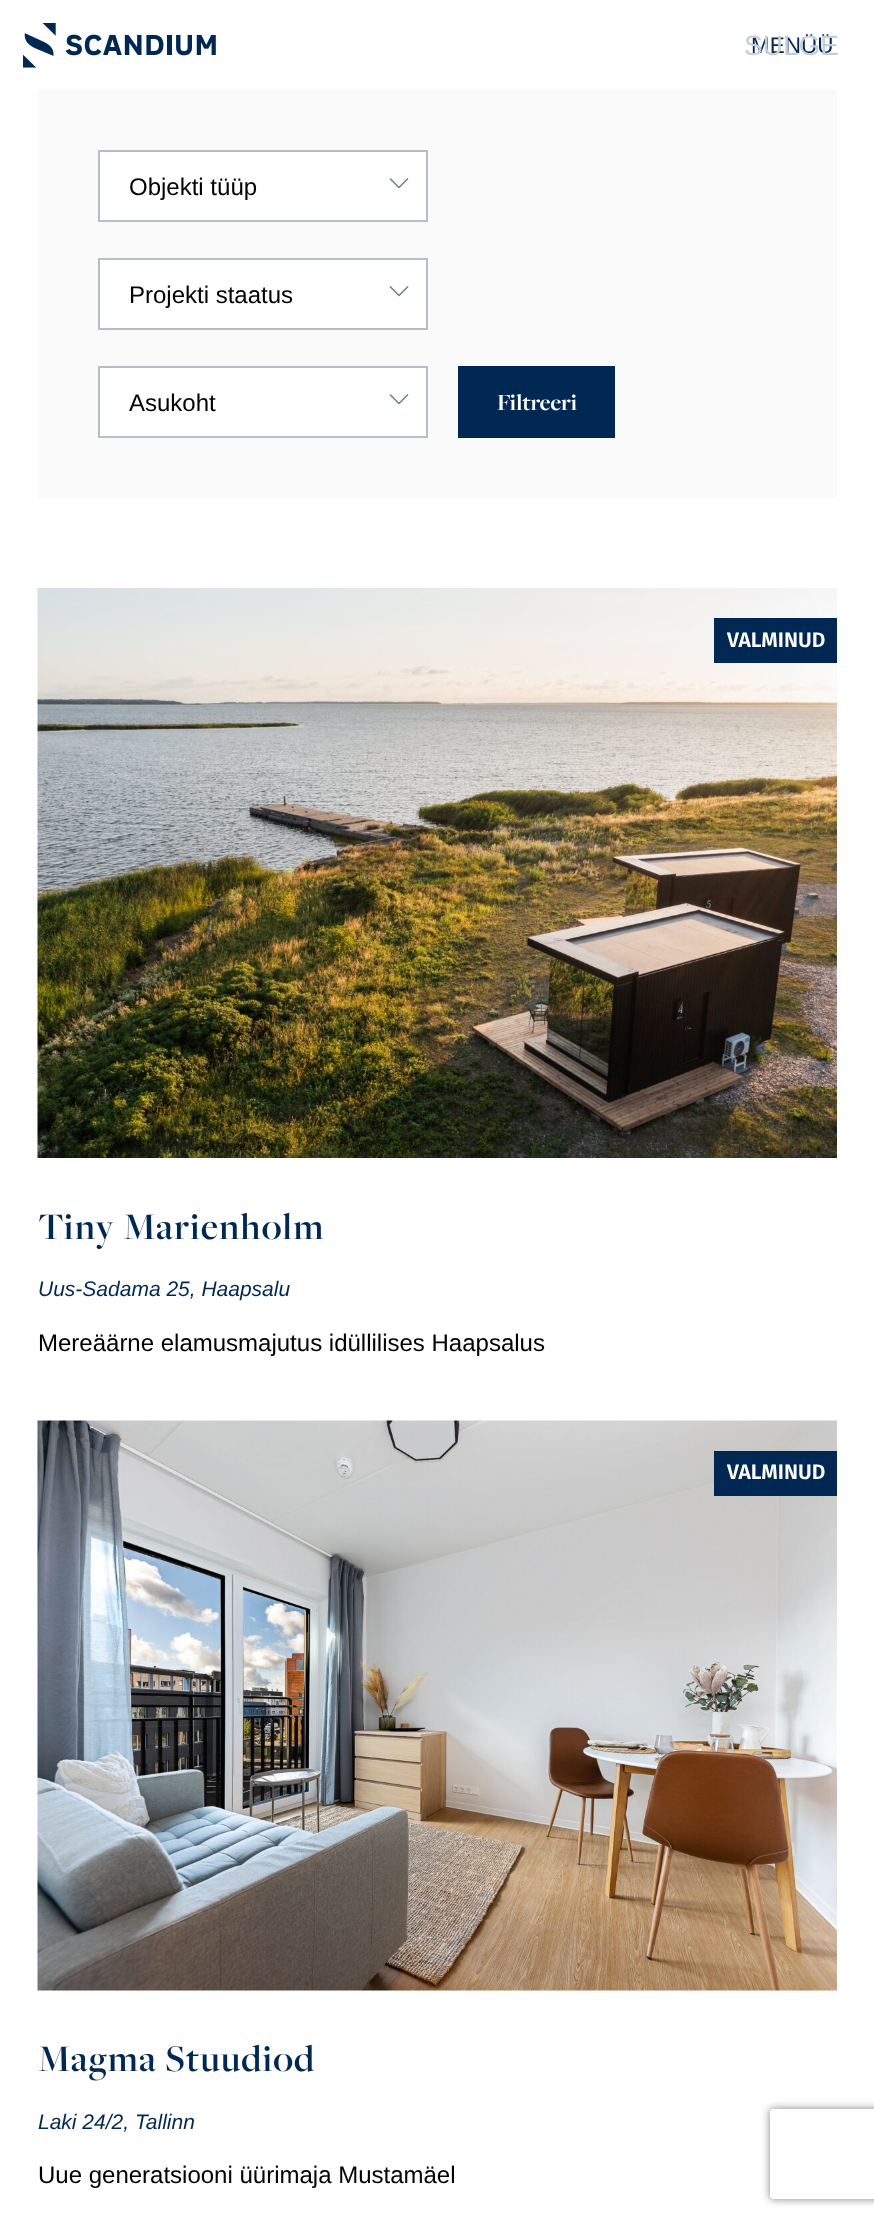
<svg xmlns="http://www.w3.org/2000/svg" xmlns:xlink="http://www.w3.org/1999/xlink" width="874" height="2219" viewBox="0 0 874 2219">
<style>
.cls-1{font:22.5px Liberation Sans;fill:#002852}
.cls-2{font:28px Liberation Sans;fill:#c6cfd9}
.cls-3{font:24px Liberation Sans;fill:#000000}
.cls-4{font:bold 24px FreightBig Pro;fill:#ffffff}
.cls-5{font:600 21px Fira Sans;fill:#ffffff}
.cls-6{font:600 39px FreightBig Pro;letter-spacing:1.2px;fill:#002852}
.cls-7{font:italic 21px Liberation Sans;fill:#002852}
</style>
<defs>
<clipPath id="clip1"><path d="M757 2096H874V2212H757ZM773 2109H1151C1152.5 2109 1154 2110.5 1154 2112V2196C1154 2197.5 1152.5 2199 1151 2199H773C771.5 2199 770 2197.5 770 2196V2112C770 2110.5 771.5 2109 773 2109Z" clip-rule="evenodd"/></clipPath>
</defs>
<rect width="100%" height="100%" fill="#ffffff"/>
<image xlink:href="image0.png" x="23" y="23" width="193" height="45"/>
<rect fill="#fafafa" x="38" y="90" width="799" height="408"/>
<rect fill="#ffffff" stroke="#b3bfcb" stroke-width="2" x="99" y="151" width="328" height="70"/>
<image xlink:href="image1.png" x="389" y="178" width="20" height="11"/>
<rect fill="#ffffff" stroke="#b3bfcb" stroke-width="2" x="99" y="259" width="328" height="70"/>
<image xlink:href="image1.png" x="389" y="286" width="20" height="11"/>
<rect fill="#ffffff" stroke="#b3bfcb" stroke-width="2" x="99" y="367" width="328" height="70"/>
<image xlink:href="image1.png" x="389" y="394" width="20" height="11"/>
<rect fill="#002852" x="458" y="366" width="157" height="72"/>
<image xlink:href="image2.png" x="37" y="588" width="800" height="570"/>
<rect fill="#002852" x="714" y="618" width="123" height="45"/>
<rect fill="#fafafa" x="38" y="1990" width="799" height="1"/>
<image xlink:href="image3.png" x="37" y="1420" width="800" height="571"/>
<rect fill="#002852" x="714" y="1451" width="123" height="45"/>
<g clip-path="url(#clip1)">
<rect fill="#808080" filter="blur(4px)" x="770" y="2109" width="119" height="90" rx="3"/>
</g>
<text class="cls-1" x="751" y="53">MENÜÜ</text>
<text class="cls-2" x="744" y="55">SULGE</text>
<text class="cls-3" x="129" y="195">Objekti tüüp</text>
<text class="cls-3" x="129" y="303">Projekti staatus</text>
<text class="cls-3" x="129" y="411">Asukoht</text>
<text class="cls-4" x="497" y="410">Filtreeri</text>
<text class="cls-5" x="727" y="647">VALMINUD</text>
<text class="cls-6" x="38" y="1239">Tiny Marienholm</text>
<text class="cls-7" x="38" y="1296">Uus-Sadama 25, Haapsalu</text>
<text class="cls-3" x="38" y="1351">Mereäärne elamusmajutus idüllilises Haapsalus</text>
<text class="cls-5" x="727" y="1479">VALMINUD</text>
<text class="cls-6" x="38" y="2071">Magma Stuudiod</text>
<text class="cls-7" x="38" y="2129">Laki 24/2, Tallinn</text>
<text class="cls-3" x="38" y="2183">Uue generatsiooni üürimaja Mustamäel</text>
</svg>
